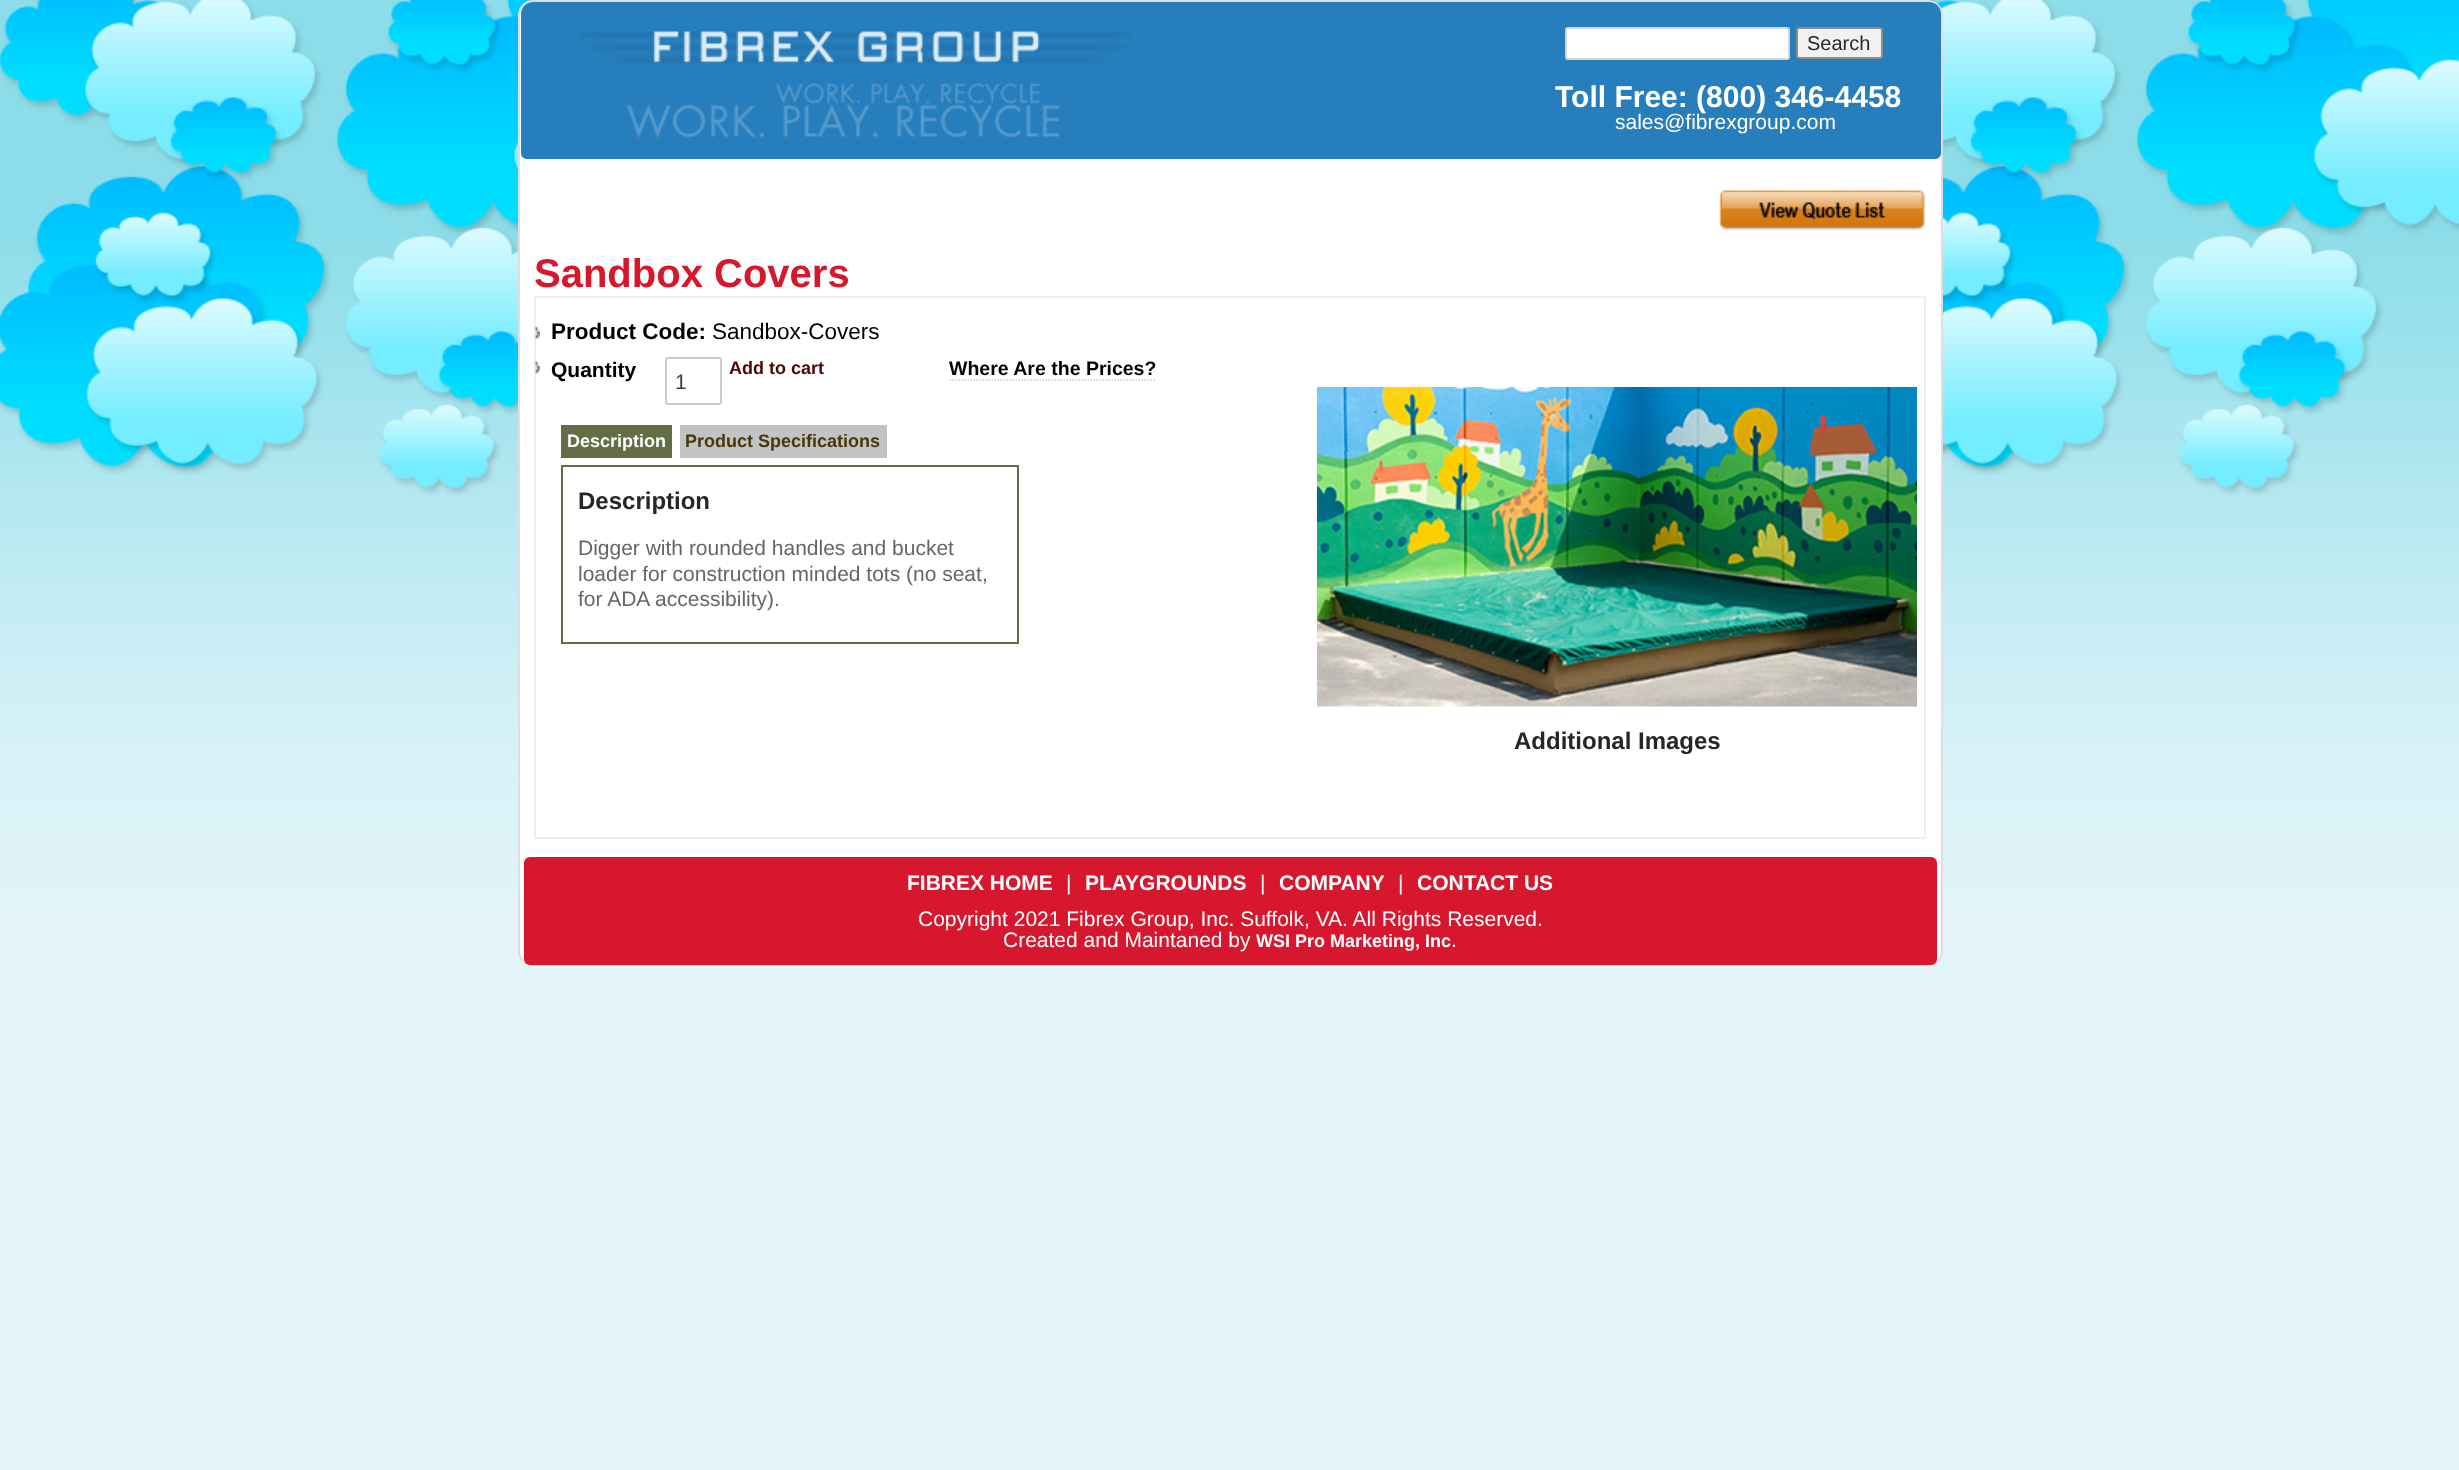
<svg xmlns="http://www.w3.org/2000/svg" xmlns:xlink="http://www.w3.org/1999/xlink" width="2459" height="1470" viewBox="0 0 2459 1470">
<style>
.cls-1{font:20px Liberation Sans;fill:#262626}
.cls-2{font:bold 30px Liberation Sans;fill:#ffffff}
.cls-3{font:21px Liberation Sans;fill:#ffffff}
.cls-4{font:bold 40px Liberation Sans;fill:#d6172d}
.cls-5{font:bold 22.5px Liberation Sans;fill:#000000}
.cls-6{font:22.5px Liberation Sans;fill:#000000}
.cls-7{font:bold 21px Liberation Sans;fill:#000000}
.cls-8{font:21px Liberation Sans;fill:#404040}
.cls-9{font:bold 18px Liberation Sans;fill:#4e0603}
.cls-10{font:bold 19.5px Liberation Sans;fill:#000000}
.cls-11{font:bold 18px Liberation Sans;fill:#ffffff}
.cls-12{font:bold 18px Liberation Sans;fill:#46380b}
.cls-13{font:bold 24px Liberation Sans;fill:#262626}
.cls-14{font:21px Liberation Sans;fill:#666666}
.cls-15{font:bold 21px Liberation Sans;fill:#ffffff}
</style>
<rect width="100%" height="100%" fill="#e4f5fa"/>
<image xlink:href="image0.png" x="0" y="0" width="2459" height="897"/>
<rect fill="#ffffff" stroke="#dedede" stroke-width="2" x="519" y="1" width="1423" height="964" rx="14"/>
<path fill="#0067b2" fill-opacity="0.85" d="M533 2H1929C1935.5 2 1941 7.5 1941 14V153C1941 156.5 1938.5 159 1935 159H527C523.5 159 521 156.5 521 153V14C521 7.5 526.5 2 533 2Z"/>
<image xlink:href="image1.png" x="578" y="31" width="554" height="33"/>
<rect fill="#ffffff" stroke="#d4d4d4" stroke-width="2" x="1566" y="28" width="223" height="31" rx="2"/>
<rect fill="#f1f1f1" stroke="#8b8b8b" stroke-width="2" x="1797" y="28" width="85" height="30" rx="2"/>
<image xlink:href="image2.png" x="627" y="82" width="432" height="56"/>
<image xlink:href="image3.png" x="1718" y="190" width="208" height="41"/>
<rect fill="none" stroke="#eeeeee" stroke-width="2" x="535" y="297" width="1390" height="541"/>
<image xlink:href="image4.png" x="535" y="327" width="5" height="12"/>
<image xlink:href="image5.png" x="535" y="361" width="5" height="13"/>
<rect fill="none" stroke="#cccccc" stroke-width="2" x="666" y="358" width="55" height="46" rx="2"/>
<path fill="none" stroke="#cccccc" stroke-width="1.5" stroke-dasharray="1.5 1.5" d="M949.5 380H1156.5"/>
<rect fill="#636e46" x="561" y="425" width="111" height="33"/>
<rect fill="#c3c3c3" x="680" y="425" width="207" height="33"/>
<rect fill="none" stroke="#636e46" stroke-width="2" x="562" y="466" width="456" height="177"/>
<image xlink:href="image6.png" x="1317" y="387" width="600" height="320"/>
<rect fill="#d6172d" x="524" y="857" width="1413" height="108" rx="6"/>
<text class="cls-1" x="1807" y="50">Search</text>
<text class="cls-2" x="1555" y="107">Toll Free: (800) 346-4458</text>
<text class="cls-3" x="1615" y="129">sales@fibrexgroup.com</text>
<text class="cls-4" x="534" y="287">Sandbox Covers</text>
<text class="cls-5" x="551" y="339">Product Code:</text>
<text class="cls-6" x="712" y="339">Sandbox-Covers</text>
<text class="cls-7" x="551" y="377">Quantity</text>
<text class="cls-8" x="675" y="389">1</text>
<text class="cls-9" x="729" y="374">Add to cart</text>
<text class="cls-10" x="949" y="375">Where Are the Prices?</text>
<text class="cls-11" x="567" y="447">Description</text>
<text class="cls-12" x="685" y="447">Product Specifications</text>
<text class="cls-13" x="578" y="509">Description</text>
<text class="cls-14"><tspan x="578" y="555">Digger with rounded handles and bucket</tspan><tspan x="578" y="581">loader for construction minded tots (no seat,</tspan><tspan x="578" y="606">for ADA accessibility).</tspan></text>
<text class="cls-13" x="1514" y="749">Additional Images</text>
<text class="cls-15" x="907" y="890">FIBREX HOME</text>
<text class="cls-3" x="1066" y="890">|</text>
<text class="cls-15" x="1085" y="890">PLAYGROUNDS</text>
<text class="cls-3" x="1260" y="890">|</text>
<text class="cls-15" x="1279" y="890">COMPANY</text>
<text class="cls-3" x="1398" y="890">|</text>
<text class="cls-15" x="1417" y="890">CONTACT US</text>
<text class="cls-3" x="918" y="926">Copyright 2021 Fibrex Group, Inc. Suffolk, VA. All Rights Reserved.</text>
<text class="cls-3" x="1003" y="947">Created and Maintaned by</text>
<text class="cls-11" x="1256" y="947">WSI Pro Marketing, Inc</text>
<text class="cls-3" x="1451" y="947">.</text>
</svg>
